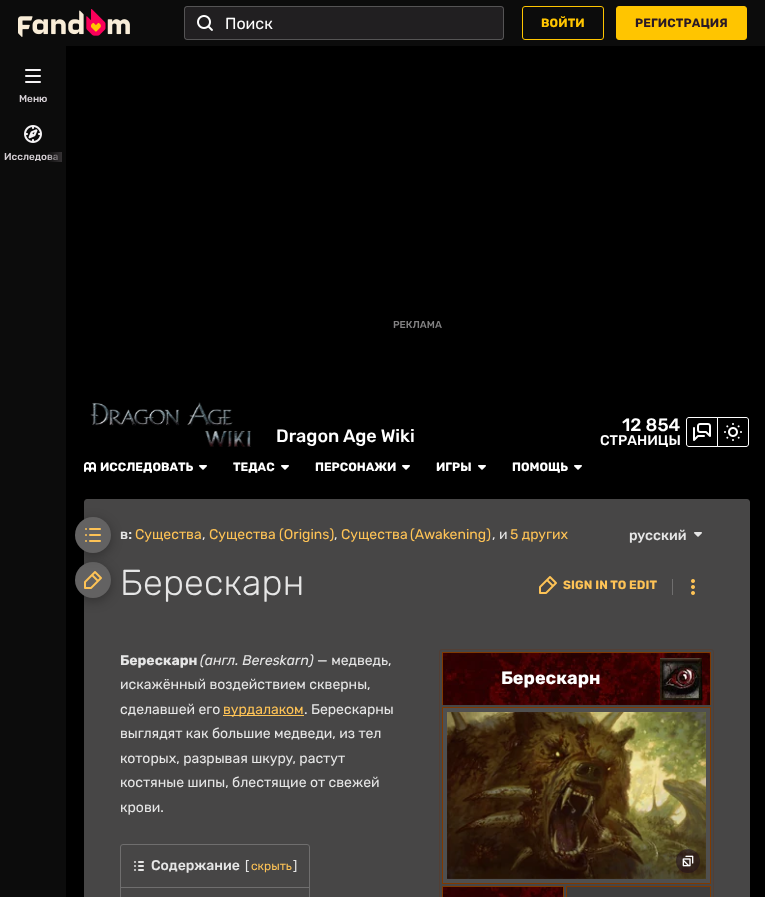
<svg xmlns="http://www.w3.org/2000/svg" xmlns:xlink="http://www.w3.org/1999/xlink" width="765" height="897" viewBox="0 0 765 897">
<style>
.cls-1{font:16px Rubik;fill:#ffffff}
.cls-2{font:bold 12px Rubik;letter-spacing:0.1px;fill:#ffc500}
.cls-3{font:bold 12px Rubik;letter-spacing:0.1px;fill:#291927}
.cls-4{font:500 10px Rubik;fill:#d6d0d5}
.cls-5{font:500 10px Rubik;fill:#838283}
.cls-6{font:500 18px Rubik;fill:#ffffff}
.cls-7{font:500 14px Rubik;fill:#ffffff}
.cls-8{font:bold 12px Rubik;fill:#ffffff}
.cls-9{font:500 14px Rubik;fill:#e6e6e6}
.cls-10{font:14px Rubik;fill:#fec356}
.cls-11{font:14px Rubik;fill:#e6e6e6}
.cls-12{font:300 36px Rubik;letter-spacing:0.25px;fill:#e6e6e6}
.cls-13{font:bold 12px Rubik;letter-spacing:0.1px;fill:#fec356}
.cls-14{font:bold 14px Rubik;fill:#e6e6e6}
.cls-15{font:italic 14px Rubik;fill:#e6e6e6}
.cls-16{font:bold 18px Rubik;fill:#ffffff}
.cls-17{font:13px Rubik;fill:#e6e6e6}
.cls-18{font:12px Rubik;fill:#fec356}
</style>
<defs>
<linearGradient id="g1" gradientUnits="userSpaceOnUse" x1="47" y1="157" x2="62" y2="157"><stop offset="0" stop-color="#343133" stop-opacity="0"/><stop offset="1" stop-color="#343133"/></linearGradient>
</defs>
<rect width="100%" height="100%" fill="#000000"/>
<rect fill="#0c0c0c" x="0" y="0" width="765" height="46"/>
<image xlink:href="image0.png" x="18" y="9" width="112" height="28"/>
<rect fill="#211f21" x="184" y="6" width="320" height="34" rx="3"/>
<rect fill="none" stroke="#f5f3f5" stroke-opacity="0.25" x="184.5" y="6.5" width="319" height="33" rx="2.5"/>
<image xlink:href="image1.png" x="197" y="15" width="16" height="16"/>
<rect fill="none" stroke="#ffc500" x="522.5" y="6.5" width="81" height="33" rx="2.5"/>
<rect fill="#ffc500" stroke="#ffc500" x="616.5" y="6.5" width="130" height="33" rx="2.5"/>
<path fill="#474646" d="M87 499H747C748.5 499 750 500.5 750 502V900H84V502C84 500.5 85.5 499 87 499Z"/>
<rect fill="#000000" fill-opacity="0.3" filter="blur(6px)" x="75" y="565" width="36" height="36" rx="18"/>
<circle fill="#636262" cx="93" cy="580" r="18"/>
<image xlink:href="image10.png" x="84" y="571" width="18" height="18"/>
<rect fill="#000000" fill-opacity="0.3" filter="blur(6px)" x="75" y="520" width="36" height="36" rx="18"/>
<rect fill="#0c0c0c" x="0" y="46" width="66" height="851"/>
<image xlink:href="image2.png" x="25" y="69" width="16" height="14"/>
<image xlink:href="image3.png" x="24" y="125" width="18" height="18"/>
<image xlink:href="image4.png" x="90" y="402" width="161" height="45"/>
<path fill="none" stroke="#ffffff" d="M689 417.5H717.5V446.5H689C687.5 446.5 686.5 445.5 686.5 444V420C686.5 418.5 687.5 417.5 689 417.5Z"/>
<image xlink:href="image5.png" x="693" y="423" width="18" height="18"/>
<path fill="none" stroke="#ffffff" d="M717.5 417.5H746C747.5 417.5 748.5 418.5 748.5 420V444C748.5 445.5 747.5 446.5 746 446.5H717.5Z"/>
<image xlink:href="image6.png" x="724" y="423" width="18" height="18"/>
<image xlink:href="image7.png" x="84" y="462" width="12" height="10"/>
<image xlink:href="image8.png" x="199" y="465" width="8" height="5"/>
<image xlink:href="image8.png" x="281" y="465" width="8" height="5"/>
<image xlink:href="image8.png" x="402" y="465" width="8" height="5"/>
<image xlink:href="image8.png" x="478" y="465" width="8" height="5"/>
<image xlink:href="image8.png" x="574" y="465" width="8" height="5"/>
<circle fill="#636262" cx="93" cy="535" r="18"/>
<image xlink:href="image9.png" x="85" y="528" width="16" height="14"/>
<image xlink:href="image11.png" x="694" y="532" width="8" height="5"/>
<image xlink:href="image12.png" x="539" y="576" width="18" height="18"/>
<rect fill="#6f6e6e" x="672" y="579" width="1" height="16"/>
<image xlink:href="image13.png" x="691" y="579" width="4" height="16"/>
<rect fill="#fec356" x="223" y="715" width="81" height="1"/>
<rect fill="none" stroke="#523f35" x="439.5" y="649.5" width="274" height="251" rx="2.5"/>
<image xlink:href="image14.png" x="443" y="653" width="267" height="52"/>
<rect fill="#803900" x="442" y="652" width="269" height="1"/>
<rect fill="#803900" x="710" y="652" width="1" height="53"/>
<rect fill="#803900" x="442" y="652" width="1" height="53"/>
<image xlink:href="image15.png" x="660" y="658" width="42" height="42"/>
<rect fill="#4f4f4f" stroke="#803900" x="442.5" y="707.5" width="268" height="176"/>
<image xlink:href="image16.png" x="447" y="712" width="259" height="167"/>
<circle fill="#1e0c1b" fill-opacity="0.5" cx="688" cy="861" r="12"/>
<image xlink:href="image17.png" x="682" y="855" width="12" height="12"/>
<image xlink:href="image18.png" x="443" y="887" width="120" height="10"/>
<rect fill="#803900" x="442" y="886" width="122" height="1"/>
<rect fill="#803900" x="563" y="886" width="1" height="11"/>
<rect fill="#803900" x="442" y="886" width="1" height="11"/>
<rect fill="#3e3d3d" stroke="#803900" x="566.5" y="886.5" width="144" height="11"/>
<rect fill="none" stroke="#6f6e6e" x="120.5" y="844.5" width="189" height="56" rx="2.5"/>
<rect fill="#6f6e6e" x="121" y="887" width="188" height="1"/>
<image xlink:href="image19.png" x="134" y="861" width="10" height="10"/>
<text class="cls-1" x="225" y="29">Поиск</text>
<text class="cls-2" x="541" y="27">ВОЙТИ</text>
<text class="cls-3" x="635" y="27">РЕГИСТРАЦИЯ</text>
<text class="cls-4" x="19" y="102">Меню</text>
<text class="cls-4" x="4" y="160">Исследова</text>
<rect fill="url(#g1)" x="48" y="152" width="14" height="10"/>
<text class="cls-5" x="393" y="328">PЕКЛАМА</text>
<text class="cls-6" x="276" y="442">Dragon Age Wiki</text>
<text class="cls-6" x="622" y="431">12 854</text>
<text class="cls-7" x="600" y="445">СТРАНИЦЫ</text>
<text class="cls-8" x="100" y="471">ИССЛЕДОВАТЬ</text>
<text class="cls-8" x="233" y="471">ТЕДАС</text>
<text class="cls-8" x="315" y="471">ПЕРСОНАЖИ</text>
<text class="cls-8" x="436" y="471">ИГРЫ</text>
<text class="cls-8" x="512" y="471">ПОМОЩЬ</text>
<text class="cls-9" x="120" y="539">в:</text>
<text class="cls-10" x="135" y="539">Существа</text>
<text class="cls-11" x="202" y="539">,</text>
<text class="cls-10" x="209" y="539">Существа (Origins)</text>
<text class="cls-11" x="334" y="539">,</text>
<text class="cls-10" x="341" y="539" word-spacing="-1">Существа (Awakening)</text>
<text class="cls-11" x="492" y="539">, и</text>
<text class="cls-10" x="510" y="539">5 других</text>
<text class="cls-9" x="629" y="540">русский</text>
<text class="cls-12" x="120" y="595">Берескарн</text>
<text class="cls-13" x="563" y="589">SIGN IN TO EDIT</text>
<text class="cls-14" x="120" y="665">Берескарн</text>
<text class="cls-15" x="200" y="665">(англ. Bereskarn)</text>
<text class="cls-11" x="317" y="665">— медведь,</text>
<text class="cls-11"><tspan x="120" y="689">искажённый воздействием скверны,</tspan><tspan x="120" y="714">сделавшей его</tspan></text>
<text class="cls-10" x="223" y="714">вурдалаком</text>
<text class="cls-11" x="304" y="714">. Берескарны</text>
<text class="cls-11"><tspan x="120" y="738">выглядят как большие медведи, из тел</tspan><tspan x="120" y="763">которых, разрывая шкуру, растут</tspan><tspan x="120" y="787">костяные шипы, блестящие от свежей</tspan><tspan x="120" y="812">крови.</tspan></text>
<text class="cls-16" x="501" y="684">Берескарн</text>
<text class="cls-9" x="151" y="870">Содержание</text>
<text class="cls-17" x="245" y="870">[</text>
<text class="cls-18" x="251" y="870">скрыть</text>
<text class="cls-17" x="293" y="870">]</text>
</svg>
